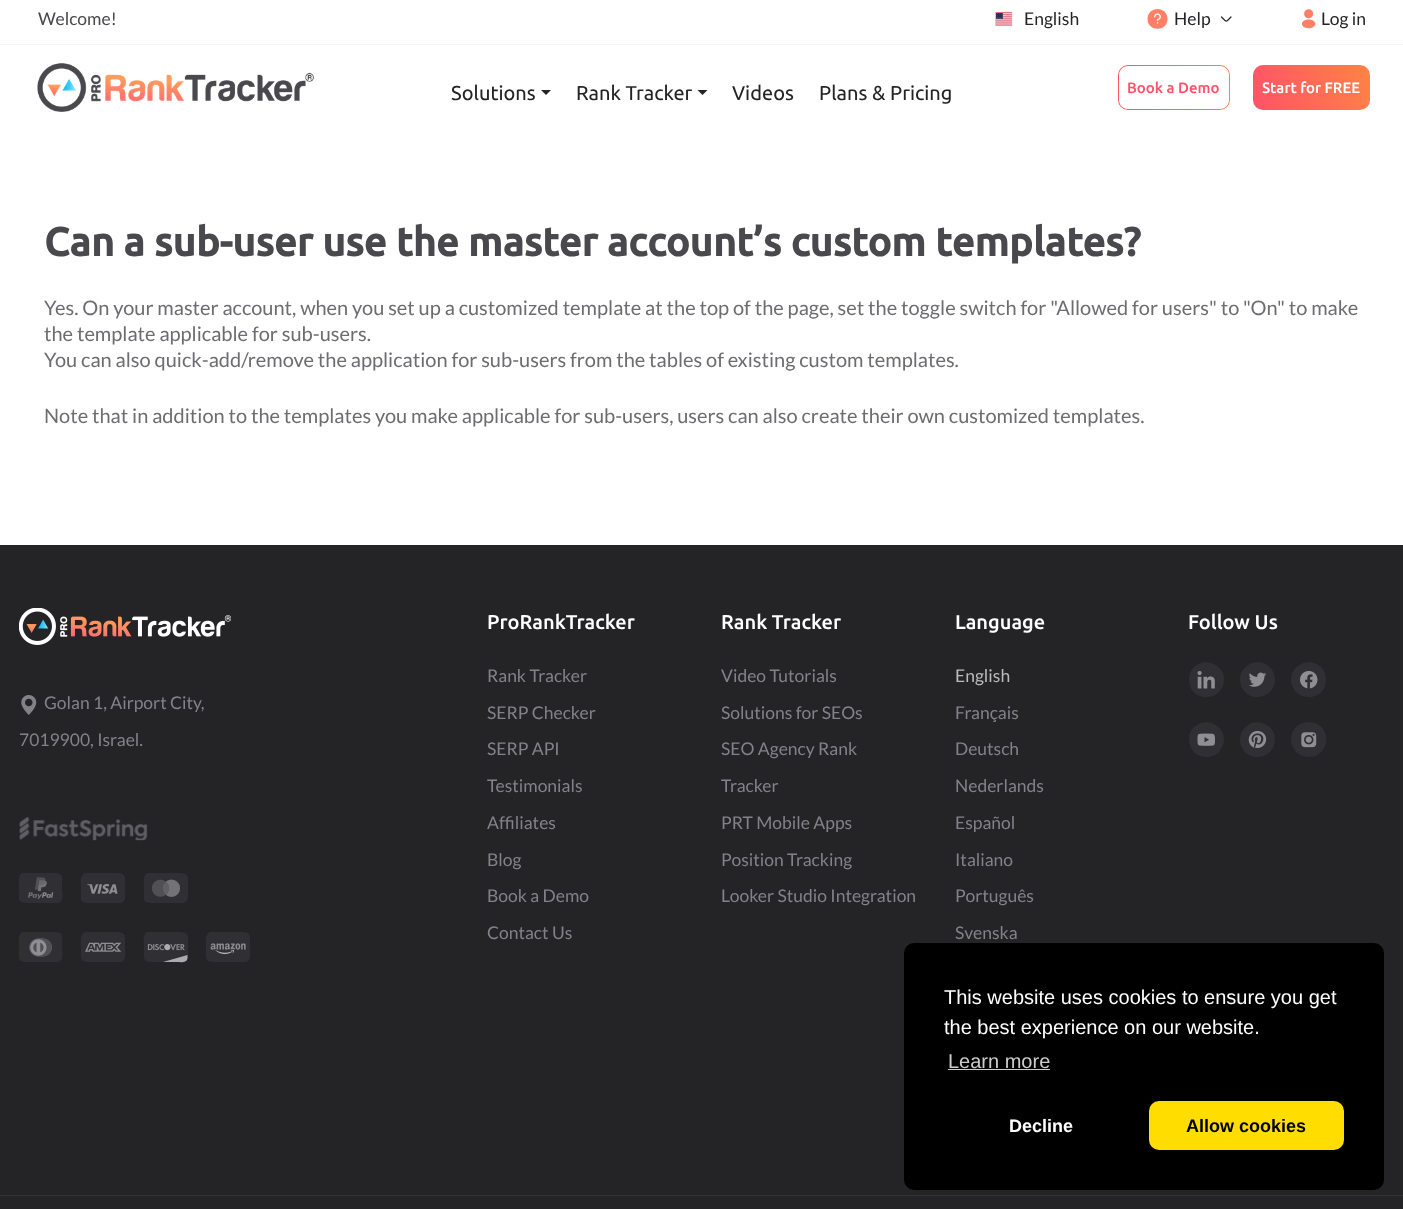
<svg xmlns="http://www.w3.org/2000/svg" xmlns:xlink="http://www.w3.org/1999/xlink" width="1403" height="1209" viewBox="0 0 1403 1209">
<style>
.cls-1{font:17.5px Lato;fill:#48484d}
.cls-2{font:17.5px Lato;fill:#242427}
.cls-3{font:20px Ubuntu;fill:#242427}
.cls-4{font:500 15px Ubuntu;fill:#ff5169}
.cls-5{font:500 15px Ubuntu;fill:#ffffff}
.cls-6{font:bold 40px Ubuntu;fill:#48484d}
.cls-7{font:20px Lato;fill:#6d6d71}
.cls-8{font:17.5px Lato;fill:#838387}
.cls-9{font:500 20px Ubuntu;fill:#ffffff}
.cls-10{font:17.5px Lato;fill:#bbbbbb}
.cls-11{font:20px Liberation Sans;fill:#ffffff}
.cls-12{font:20px Liberation Sans;fill:#cccccc}
.cls-13{font:bold 18px Liberation Sans;fill:#ffffff}
.cls-14{font:bold 18px Liberation Sans;fill:#000000}
</style>
<defs>
<linearGradient id="g1" gradientUnits="userSpaceOnUse" x1="1115" y1="105" x2="1248" y2="65"><stop offset="0" stop-color="#ff5169"/><stop offset="1" stop-color="#ff8a3f"/></linearGradient>
<linearGradient id="g2" gradientUnits="userSpaceOnUse" x1="1250" y1="106" x2="1388" y2="64"><stop offset="0" stop-color="#ff5169"/><stop offset="1" stop-color="#ff8a3f"/></linearGradient>
</defs>
<rect width="100%" height="100%" fill="#ffffff"/>
<rect fill="#f5f5f9" x="0" y="44" width="1403" height="1"/>
<image xlink:href="image0.png" x="995" y="12" width="18" height="14"/>
<rect fill="#46467f" x="996" y="13" width="7" height="6"/>
<image xlink:href="image1.png" x="996" y="13" width="6" height="5"/>
<path fill="none" stroke="#242427" stroke-width="1.2" stroke-linecap="round" stroke-linejoin="round" d="M1231 17C1225.5 22.5 1227 22.5 1221.5 17"/>
<path fill="#ff8066" d="M1167.5 19C1167.5 32 1147.5 32 1147.5 19C1147.5 5.5 1167.5 5.5 1167.5 19Z"/>
<image xlink:href="image2.png" x="1154" y="13" width="7" height="8"/>
<image xlink:href="image3.png" x="1156" y="22" width="3" height="2"/>
<image xlink:href="image4.png" x="1302" y="9" width="14" height="20"/>
<image xlink:href="image5.png" x="37" y="63" width="277" height="49"/>
<path fill="#242427" d="M541 90H551L546 95Z"/>
<path fill="#242427" d="M697.5 90H707.5L702.5 95Z"/>
<rect fill="url(#g1)" x="1118" y="65" width="112" height="45" rx="10"/>
<path fill="#ffffff" d="M1128 66C1123 66 1119 70 1119 75V100C1119 105 1123 109 1128 109H1220C1225 109 1229 105 1229 100V75C1229 70 1225 66 1220 66Z"/>
<rect fill="url(#g2)" x="1253" y="65" width="117" height="45" rx="10"/>
<rect fill="#242427" x="0" y="545" width="1403" height="664"/>
<image xlink:href="image6.png" x="19" y="608" width="212" height="37"/>
<image xlink:href="image7.png" x="21" y="695" width="16" height="20"/>
<image xlink:href="image8.png" x="19" y="817" width="129" height="24"/>
<path fill="#303034" d="M24 873H52C65 873 62 876 62 888C62 893 65 903 57 903H30C17 903 19 901 19 888C19 884 17 873 24 873Z"/>
<image xlink:href="image9.png" x="35" y="877" width="12" height="14"/>
<image xlink:href="image12.png" x="37" y="881" width="10" height="11"/>
<image xlink:href="image11.png" x="39" y="880" width="7" height="5"/>
<image xlink:href="image10.png" x="35" y="877" width="11" height="13"/>
<image xlink:href="image13.png" x="28" y="892" width="14" height="7"/>
<image xlink:href="image14.png" x="42" y="892" width="12" height="6"/>
<path fill="#303034" d="M87 873H114C127 873 125 876 125 888C125 893 127 903 120 903H92C79 903 81 901 81 888C81 884 79 873 87 873Z"/>
<image xlink:href="image15.png" x="87" y="884" width="31" height="10"/>
<path fill="#303034" d="M149 873H177C190 873 188 876 188 888C188 893 190 903 182 903H155C142 903 144 901 144 888C144 884 142 873 149 873Z"/>
<image xlink:href="image16.png" x="152" y="879" width="28" height="18"/>
<image xlink:href="image17.png" x="166" y="879" width="14" height="18"/>
<image xlink:href="image18.png" x="163" y="882" width="6" height="13"/>
<path fill="#303034" d="M24 932H52C65 932 62 935 62 947C62 951 65 962 57 962H30C17 962 19 960 19 947C19 943 17 932 24 932Z"/>
<image xlink:href="image19.png" x="29" y="938" width="23" height="19"/>
<image xlink:href="image21.png" x="30" y="939" width="6" height="17"/>
<image xlink:href="image20.png" x="29" y="939" width="23" height="17"/>
<image xlink:href="image22.png" x="30" y="939" width="17" height="17"/>
<path fill="#303034" d="M87 932H114C127 932 125 935 125 947C125 951 127 962 120 962H92C79 962 81 960 81 947C81 943 79 932 87 932Z"/>
<image xlink:href="image23.png" x="85" y="942" width="37" height="10"/>
<path fill="#303034" d="M149 932H177C190 932 188 935 188 947C188 951 190 962 182 962H155C142 962 144 960 144 947C144 943 142 932 149 932Z"/>
<image xlink:href="image24.png" x="147" y="944" width="38" height="7"/>
<image xlink:href="image25.png" x="164" y="944" width="7" height="7"/>
<path fill="#aaaab1" d="M163 962L187.5 955V958.5C186.5 963.5 180 962 176.5 962Z"/>
<path fill="#303034" d="M212 932H239C252 932 250 935 250 947C250 951 252 962 245 962H217C204 962 206 960 206 947C206 943 204 932 212 932Z"/>
<image xlink:href="image27.png" x="215" y="949" width="20" height="6"/>
<image xlink:href="image26.png" x="210" y="943" width="36" height="7"/>
<path fill="#303034" d="M1189 679.5C1189 683 1190 686.5 1191.5 689.5C1201.5 703.5 1224 697 1224 679.5C1224 662.5 1201.5 655.5 1191.5 670C1190 673 1189 676 1189 679.5Z"/>
<image xlink:href="image28.png" x="1197" y="671" width="18" height="18"/>
<path fill="#303034" d="M1240 679.5C1240 683 1241 686.5 1243 689.5C1252.5 703.5 1275 697 1275 679.5C1275 676 1274 673 1272 670C1262.5 655.5 1240 662.5 1240 679.5Z"/>
<image xlink:href="image29.png" x="1249" y="672" width="17" height="15"/>
<path fill="#303034" d="M1291 679.5C1291 697 1313.5 703.5 1323.5 689.5C1325 686.5 1326 683 1326 679.5C1326 676 1325 673 1323.5 670C1313.5 655.5 1291 662.5 1291 679.5Z"/>
<image xlink:href="image30.png" x="1300" y="671" width="18" height="18"/>
<path fill="#303034" d="M1189 739.5C1189 757 1211 763.5 1221 749.5C1222.5 746.5 1224 743 1224 739.5C1224 722.5 1201.5 715.5 1191.5 730C1190 733 1189 736 1189 739.5Z"/>
<image xlink:href="image31.png" x="1197" y="733" width="18" height="13"/>
<path fill="#303034" d="M1240 739.5C1240 743 1241 746.5 1243 749.5C1252.5 763.5 1275 757 1275 739.5C1275 722.5 1252.5 715.5 1243 730C1241 733 1240 736 1240 739.5Z"/>
<image xlink:href="image32.png" x="1248" y="731" width="19" height="17"/>
<path fill="#303034" d="M1291 739.5C1291 718.5 1322 715.5 1326 736C1327 740.5 1326 745 1323.5 749C1320.5 753.5 1315.5 757 1309.5 757C1300 757.5 1291 749.5 1291 739.5Z"/>
<image xlink:href="image34.png" x="1305" y="736" width="7" height="7"/>
<image xlink:href="image33.png" x="1301" y="732" width="16" height="16"/>
<rect fill="#333336" x="0" y="1195" width="1403" height="1"/>
<rect fill="#000000" x="904" y="943" width="480" height="247" rx="10"/>
<rect fill="#cccccc" x="948" y="1069" width="102" height="1"/>
<rect fill="#ffdd00" x="1149" y="1101" width="195" height="49" rx="10"/>
<text class="cls-1" x="38" y="25">Welcome!</text>
<text class="cls-2" x="1024" y="25">English</text>
<text class="cls-2" x="1174" y="25">Help</text>
<text class="cls-2" x="1321" y="25">Log in</text>
<text class="cls-3" x="451" y="100">Solutions</text>
<text class="cls-3" x="576" y="100">Rank Tracker</text>
<text class="cls-3" x="732" y="100">Videos</text>
<text class="cls-3" x="819" y="100">Plans &amp; Pricing</text>
<text class="cls-4" x="1127" y="93">Book a Demo</text>
<text class="cls-5" x="1262" y="93">Start for FREE</text>
<text class="cls-6" x="44" y="256">Can a sub-user use the master account’s custom templates?</text>
<text class="cls-7"><tspan x="44" y="315">Yes. On your master account, when you set up a customized template at the top of the page, set the toggle switch for "Allowed for users" to "On" to make</tspan><tspan x="44" y="341">the template applicable for sub-users.</tspan><tspan x="44" y="367">You can also quick-add/remove the application for sub-users from the tables of existing custom templates.</tspan></text>
<text class="cls-7" x="44" y="423">Note that in addition to the templates you make applicable for sub-users, users can also create their own customized templates.</text>
<text class="cls-8" x="44" y="709">Golan 1, Airport City,</text>
<text class="cls-8" x="19" y="746">7019900, Israel.</text>
<text class="cls-9" x="487" y="629">ProRankTracker</text>
<text class="cls-8" x="487" y="682">Rank Tracker</text>
<text class="cls-8" x="487" y="719">SERP Checker</text>
<text class="cls-8" x="487" y="755">SERP API</text>
<text class="cls-8" x="487" y="792">Testimonials</text>
<text class="cls-8" x="487" y="829">Affiliates</text>
<text class="cls-8" x="487" y="866">Blog</text>
<text class="cls-8" x="487" y="902">Book a Demo</text>
<text class="cls-8" x="487" y="939">Contact Us</text>
<text class="cls-9" x="721" y="629">Rank Tracker</text>
<text class="cls-8" x="721" y="682">Video Tutorials</text>
<text class="cls-8" x="721" y="719">Solutions for SEOs</text>
<text class="cls-8" x="721" y="755">SEO Agency Rank</text>
<text class="cls-8" x="721" y="792">Tracker</text>
<text class="cls-8" x="721" y="829">PRT Mobile Apps</text>
<text class="cls-8" x="721" y="866">Position Tracking</text>
<text class="cls-8" x="721" y="902">Looker Studio Integration</text>
<text class="cls-9" x="955" y="629">Language</text>
<text class="cls-10" x="955" y="682">English</text>
<text class="cls-8" x="955" y="719">Français</text>
<text class="cls-8" x="955" y="755">Deutsch</text>
<text class="cls-8" x="955" y="792">Nederlands</text>
<text class="cls-8" x="955" y="829">Español</text>
<text class="cls-8" x="955" y="866">Italiano</text>
<text class="cls-8" x="955" y="902">Português</text>
<text class="cls-8" x="955" y="939">Svenska</text>
<text class="cls-9" x="1188" y="629">Follow Us</text>
<text class="cls-11"><tspan x="944" y="1004">This website uses cookies to ensure you get</tspan><tspan x="944" y="1034">the best experience on our website.</tspan></text>
<text class="cls-12" x="948" y="1068">Learn more</text>
<text class="cls-13" x="1009" y="1132">Decline</text>
<text class="cls-14" x="1186" y="1132">Allow cookies</text>
</svg>
